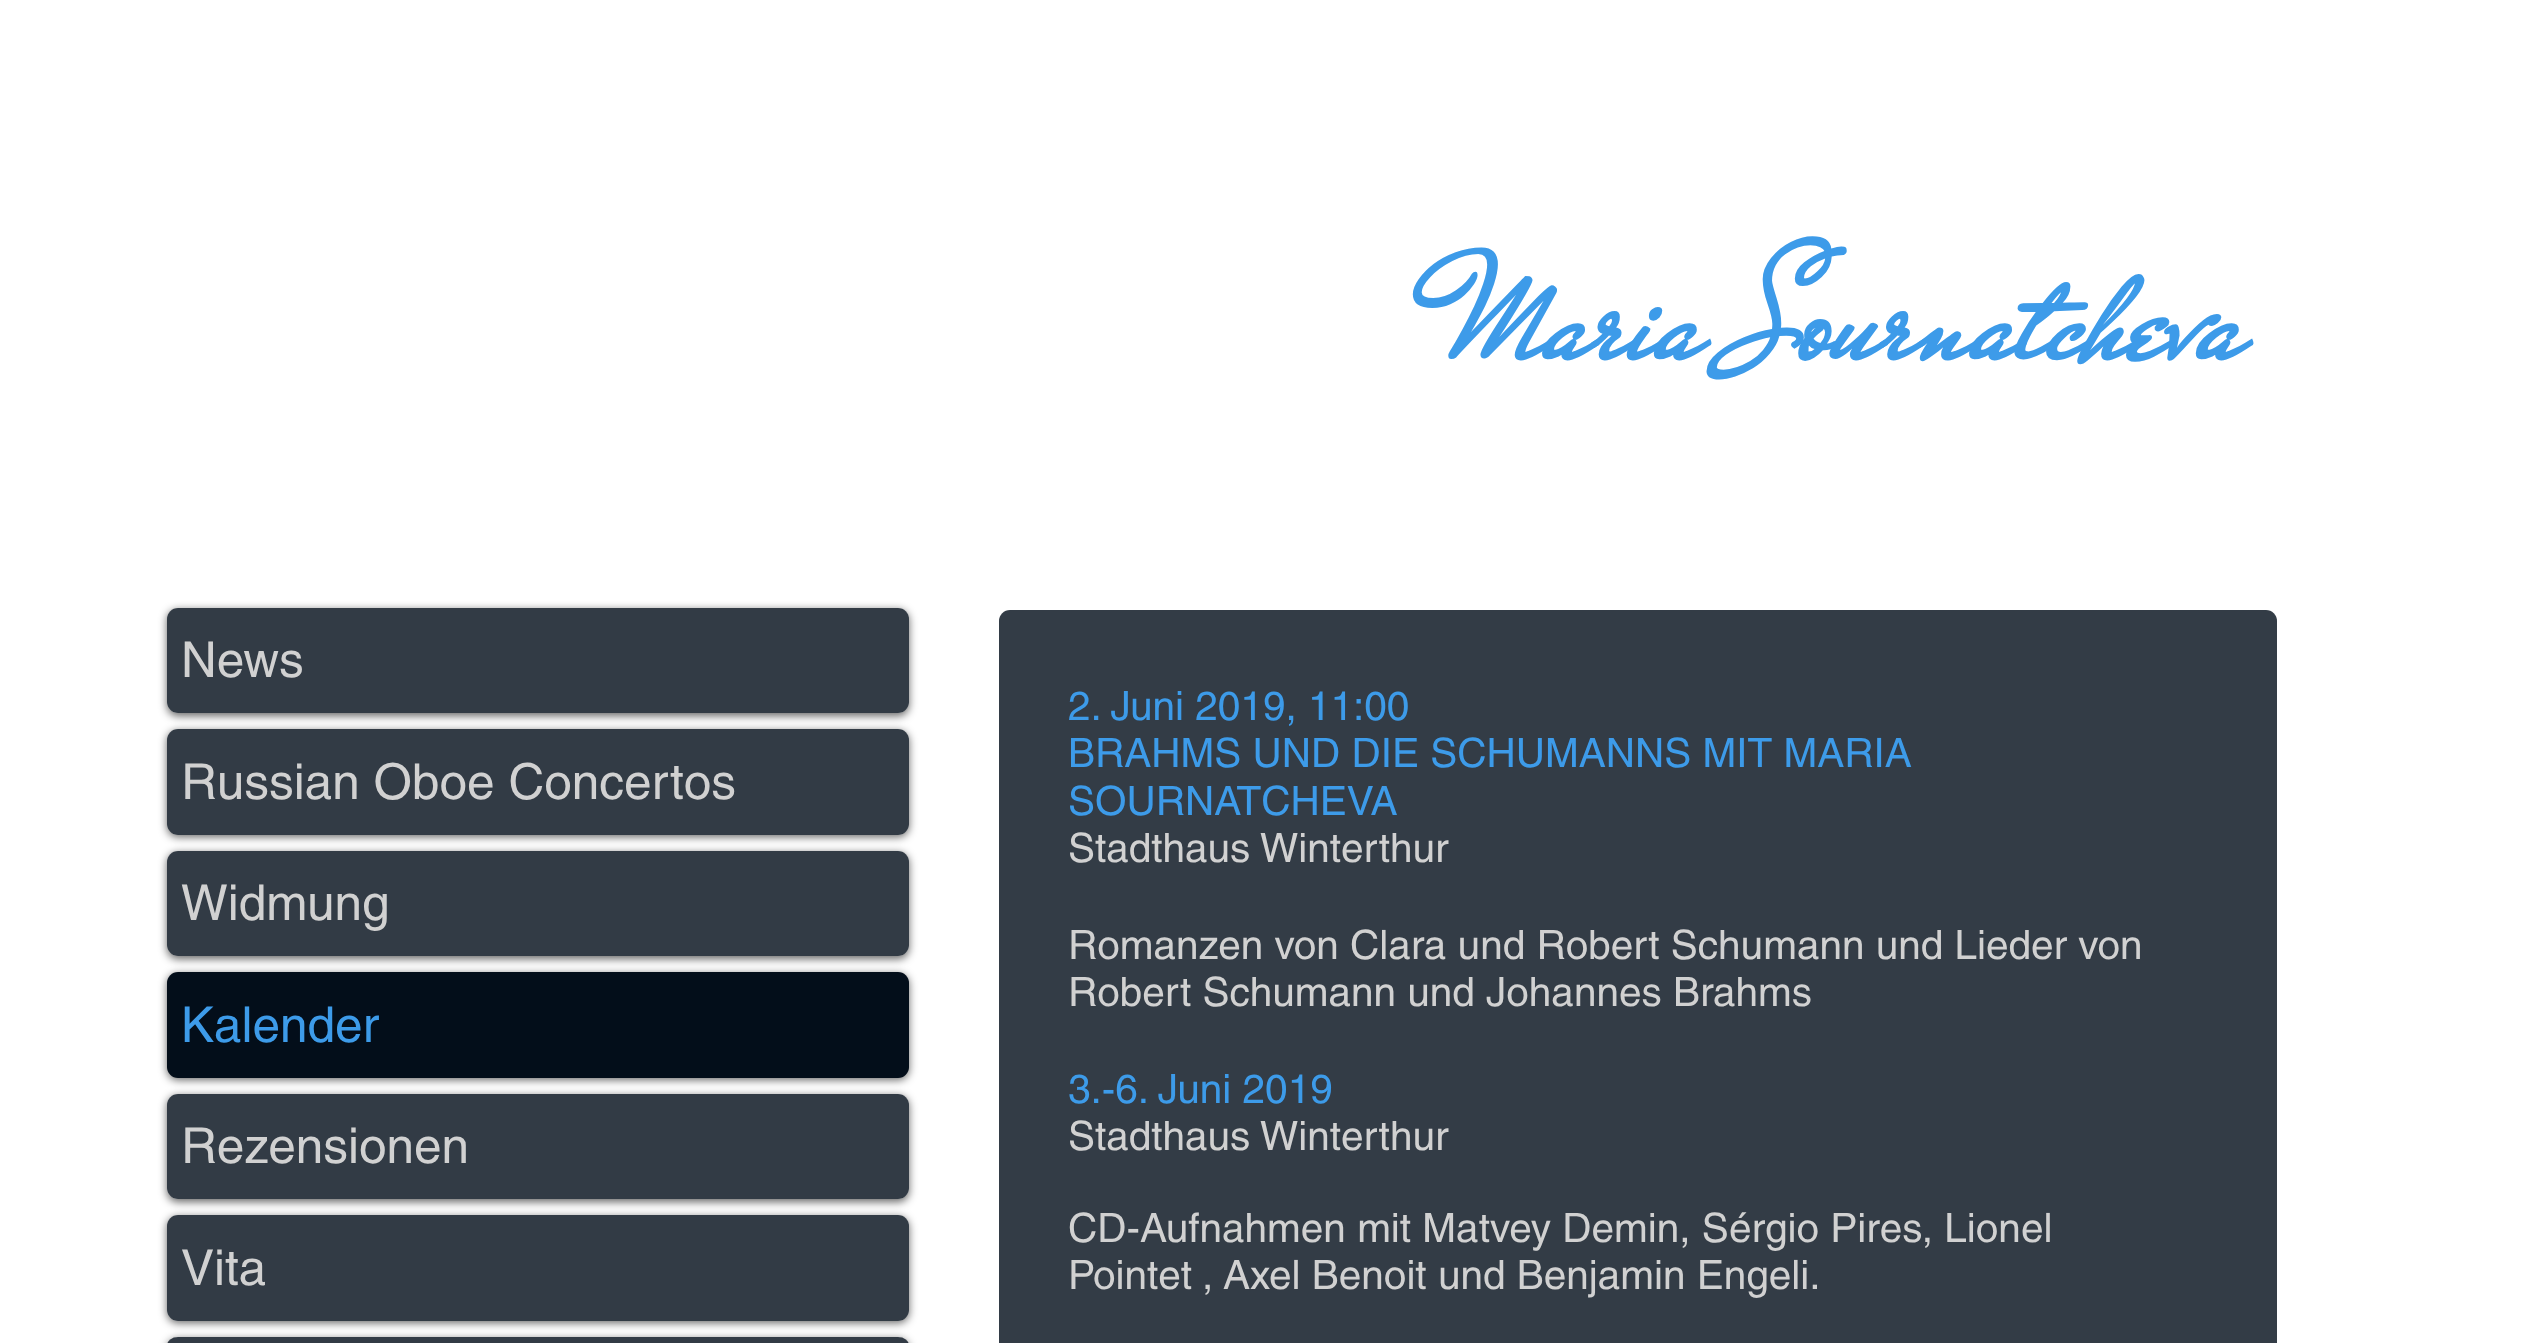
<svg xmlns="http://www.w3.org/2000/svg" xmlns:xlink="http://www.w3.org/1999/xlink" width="2535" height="1343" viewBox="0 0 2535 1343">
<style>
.cls-1{font:bold 153px Mr De Haviland;fill:#3d9be9}
.cls-2{font:49.5px helvetica;fill:#d1d1d1}
.cls-3{font:49.5px helvetica;fill:#3d9be9}
.cls-4{font:40.5px helvetica;fill:#3d9be9}
.cls-5{font:40.5px helvetica;fill:#d1d1d1}
</style>
<defs>
<clipPath id="clip1"><path d="M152 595H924V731H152ZM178 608H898C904 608 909 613 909 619V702C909 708 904 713 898 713H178C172 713 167 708 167 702V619C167 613 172 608 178 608Z" clip-rule="evenodd"/></clipPath>
<clipPath id="clip2"><path d="M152 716H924V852H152ZM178 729H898C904 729 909 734 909 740V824C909 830 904 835 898 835H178C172 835 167 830 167 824V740C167 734 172 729 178 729Z" clip-rule="evenodd"/></clipPath>
<clipPath id="clip3"><path d="M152 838H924V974H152ZM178 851H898C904 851 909 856 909 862V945C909 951 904 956 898 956H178C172 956 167 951 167 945V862C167 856 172 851 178 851Z" clip-rule="evenodd"/></clipPath>
<clipPath id="clip4"><path d="M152 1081H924V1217H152ZM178 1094H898C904 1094 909 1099 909 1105V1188C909 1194 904 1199 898 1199H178C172 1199 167 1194 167 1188V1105C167 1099 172 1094 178 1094Z" clip-rule="evenodd"/></clipPath>
<clipPath id="clip5"><path d="M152 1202H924V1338H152ZM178 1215H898C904 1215 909 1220 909 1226V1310C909 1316 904 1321 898 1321H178C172 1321 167 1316 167 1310V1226C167 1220 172 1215 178 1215Z" clip-rule="evenodd"/></clipPath>
<clipPath id="clip6"><path d="M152 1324H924V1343H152ZM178 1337H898C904 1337 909 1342 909 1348V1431C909 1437 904 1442 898 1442H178C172 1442 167 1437 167 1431V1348C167 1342 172 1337 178 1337Z" clip-rule="evenodd"/></clipPath>
</defs>
<rect width="100%" height="100%" fill="#ffffff"/>
<g clip-path="url(#clip1)">
<rect fill="#000000" fill-opacity="0.6" filter="blur(4.5px)" x="167" y="610" width="742" height="106" rx="11"/>
</g>
<rect fill="#030e1a" fill-opacity="0.81" x="167" y="608" width="742" height="105" rx="11"/>
<g clip-path="url(#clip2)">
<rect fill="#000000" fill-opacity="0.6" filter="blur(4.5px)" x="167" y="731" width="742" height="106" rx="11"/>
</g>
<rect fill="#030e1a" fill-opacity="0.81" x="167" y="729" width="742" height="106" rx="11"/>
<g clip-path="url(#clip3)">
<rect fill="#000000" fill-opacity="0.6" filter="blur(4.5px)" x="167" y="853" width="742" height="106" rx="11"/>
</g>
<rect fill="#030e1a" fill-opacity="0.81" x="167" y="851" width="742" height="105" rx="11"/>
<rect fill="#000000" fill-opacity="0.6" filter="blur(4.5px)" x="167" y="974" width="742" height="106" rx="11"/>
<rect fill="#030e1a" x="167" y="972" width="742" height="106" rx="11"/>
<g clip-path="url(#clip4)">
<rect fill="#000000" fill-opacity="0.6" filter="blur(4.5px)" x="167" y="1096" width="742" height="106" rx="11"/>
</g>
<rect fill="#030e1a" fill-opacity="0.81" x="167" y="1094" width="742" height="105" rx="11"/>
<g clip-path="url(#clip5)">
<rect fill="#000000" fill-opacity="0.6" filter="blur(4.5px)" x="167" y="1217" width="742" height="106" rx="11"/>
</g>
<rect fill="#030e1a" fill-opacity="0.81" x="167" y="1215" width="742" height="106" rx="11"/>
<g clip-path="url(#clip6)">
<rect fill="#000000" fill-opacity="0.6" filter="blur(4.5px)" x="167" y="1339" width="742" height="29" rx="11"/>
</g>
<rect fill="#030e1a" fill-opacity="0.81" x="167" y="1337" width="742" height="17" rx="11"/>
<rect fill="#333c46" x="999" y="610" width="1278" height="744" rx="11"/>
<text class="cls-1" x="1450" y="358">Maria Sournatcheva</text>
<text class="cls-2" x="181" y="677">News</text>
<text class="cls-2" x="181" y="799">Russian Oboe Concertos</text>
<text class="cls-2" x="181" y="920">Widmung</text>
<text class="cls-3" x="181" y="1042">Kalender</text>
<text class="cls-2" x="181" y="1163">Rezensionen</text>
<text class="cls-2" x="181" y="1285">Vita</text>
<text class="cls-4"><tspan x="1068" y="720">2. Juni 2019, 11:00</tspan><tspan x="1068" y="767">BRAHMS UND DIE SCHUMANNS MIT MARIA</tspan><tspan x="1068" y="815">SOURNATCHEVA</tspan></text>
<text class="cls-5" x="1068" y="862">Stadthaus Winterthur</text>
<text class="cls-5"><tspan x="1068" y="959">Romanzen von Clara und Robert Schumann und Lieder von</tspan><tspan x="1068" y="1006">Robert Schumann und Johannes Brahms</tspan></text>
<text class="cls-4" x="1068" y="1103">3.-6. Juni 2019</text>
<text class="cls-5" x="1068" y="1150">Stadthaus</text>
<text class="cls-5" x="1260" y="1150">Winterthur</text>
<text class="cls-5"><tspan x="1068" y="1242">CD-Aufnahmen mit Matvey Demin, Sérgio Pires, Lionel</tspan><tspan x="1068" y="1289">Pointet</tspan></text>
<text class="cls-5" x="1202" y="1289">,</text>
<text class="cls-5" x="1223" y="1289">Axel Benoit und Benjamin Engeli.</text>
</svg>
